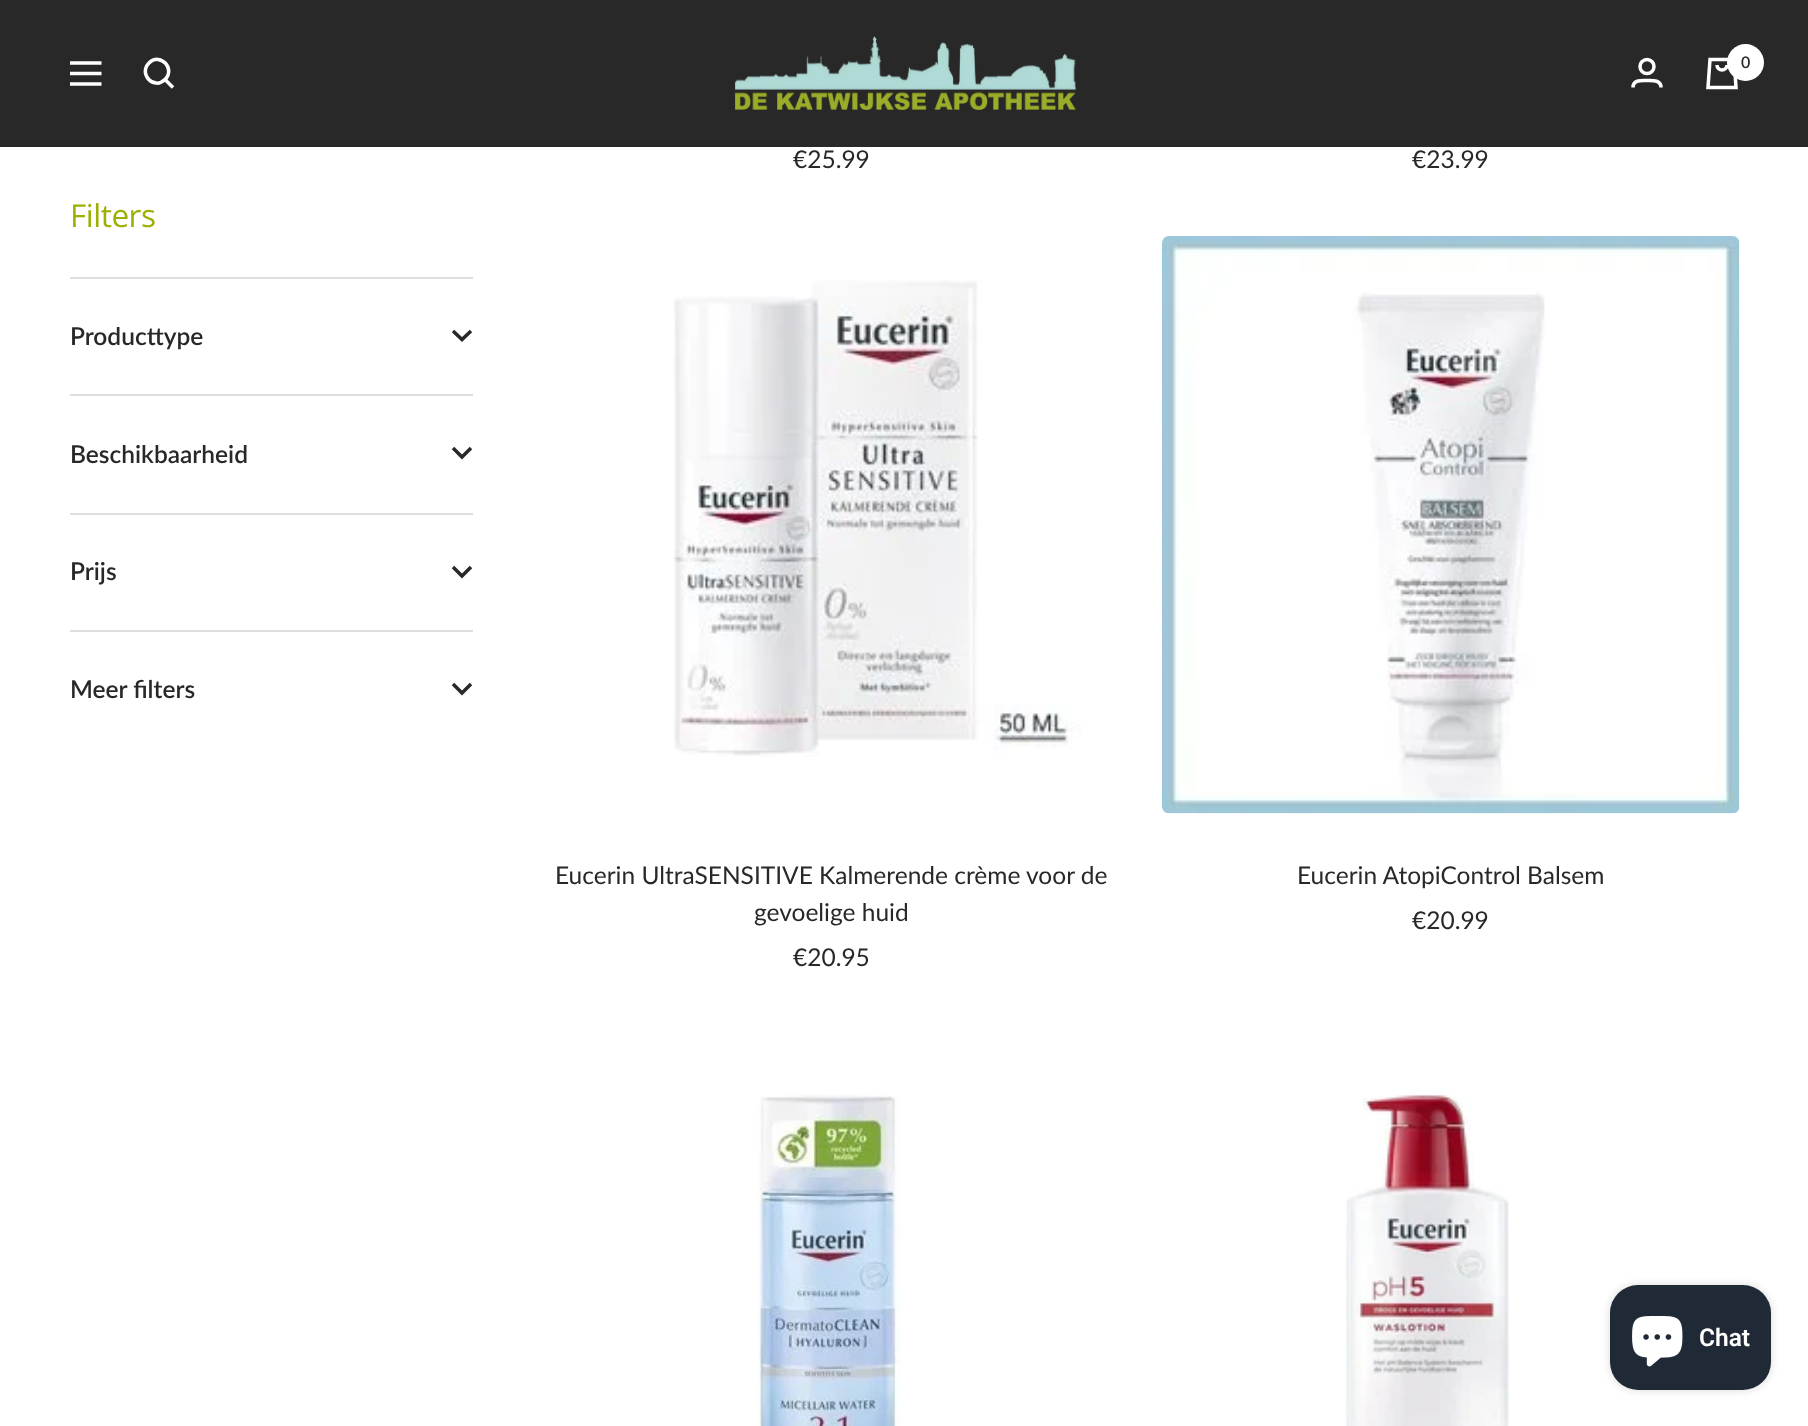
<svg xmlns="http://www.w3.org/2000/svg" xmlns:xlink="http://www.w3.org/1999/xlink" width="1808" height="1426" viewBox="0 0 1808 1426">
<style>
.cls-1{font:600 16px Lato;fill:#282828}
.cls-2{font:31.5px Open Sans;letter-spacing:-0.5px;fill:#9eb006}
.cls-3{font:600 24.5px Lato;fill:#282828}
.cls-4{font:24.5px Lato;fill:#282828}
.cls-5{font:600 24.5px Roboto;fill:#ffffff}
</style>
<rect width="100%" height="100%" fill="#ffffff"/>
<rect fill="#282828" x="0" y="0" width="1808" height="147"/>
<path fill="none" stroke="#ffffff" stroke-width="3.5" d="M70 63H101.5M70 84H101.5ZM70 73.5H101.5Z"/>
<path fill="none" stroke="#ffffff" stroke-width="3.5" d="M165 79.5C176 68.5 160 52 149 63C138 74 154 90.5 165 79.5ZM165 79.5L173 87.5"/>
<image xlink:href="image0.png" x="735" y="36" width="342" height="74"/>
<circle fill="none" stroke="#ffffff" stroke-width="3.5" cx="1647" cy="66.5" r="7"/>
<path fill="none" stroke="#ffffff" stroke-width="3.5" d="M1633 87.5C1633 79.5 1641.5 80.5 1647 80.5C1652 80.5 1661 79.5 1661 87.5"/>
<path fill="none" stroke="#ffffff" stroke-width="3.5" d="M1710 59.5H1734L1736 87.5H1708ZM1717 65C1717 71.5 1727 71.5 1727 65"/>
<circle fill="#ffffff" cx="1745.5" cy="62.5" r="18.5"/>
<rect fill="#dfdfdf" x="70" y="277" width="403" height="2"/>
<path fill="none" stroke="#282828" stroke-width="3.5" d="M453 331L462 339.5L471 331"/>
<rect fill="#dfdfdf" x="70" y="394" width="403" height="2"/>
<path fill="none" stroke="#282828" stroke-width="3.5" d="M453 448L462 457L471 448"/>
<rect fill="#dfdfdf" x="70" y="513" width="403" height="2"/>
<path fill="none" stroke="#282828" stroke-width="3.5" d="M453 567L462 576L471 567"/>
<rect fill="#dfdfdf" x="70" y="630" width="403" height="2"/>
<path fill="none" stroke="#282828" stroke-width="3.5" d="M453 684L462 693L471 684"/>
<image xlink:href="image1.png" x="673" y="280" width="408" height="477"/>
<image xlink:href="image2.png" x="1162" y="236" width="578" height="578"/>
<image xlink:href="image3.png" x="756" y="1094" width="146" height="332"/>
<image xlink:href="image4.png" x="1345" y="1094" width="164" height="332"/>
<rect fill="#000000" fill-opacity="0.15" filter="blur(4.5px)" x="1610" y="1285" width="161" height="105" rx="28"/>
<rect fill="#202a36" x="1610" y="1285" width="161" height="105" rx="28"/>
<image xlink:href="image5.png" x="1632" y="1316" width="51" height="51"/>
<text class="cls-1" x="1741" y="68">0</text>
<text class="cls-2" x="70" y="227">Filters</text>
<text class="cls-3" x="70" y="345">Producttype</text>
<text class="cls-3" x="70" y="463">Beschikbaarheid</text>
<text class="cls-3" x="70" y="580">Prijs</text>
<text class="cls-3" x="70" y="698">Meer filters</text>
<text class="cls-4" x="793" y="168">€25.99</text>
<text class="cls-4" x="1412" y="168">€23.99</text>
<text class="cls-4" x="555" y="884">Eucerin UltraSENSITIVE Kalmerende crème voor de</text>
<text class="cls-4" x="754" y="921">gevoelige huid</text>
<text class="cls-4" x="793" y="966">€20.95</text>
<text class="cls-4" x="1297" y="884">Eucerin AtopiControl Balsem</text>
<text class="cls-4" x="1412" y="929">€20.99</text>
<text class="cls-5" x="1699" y="1346">Chat</text>
</svg>
